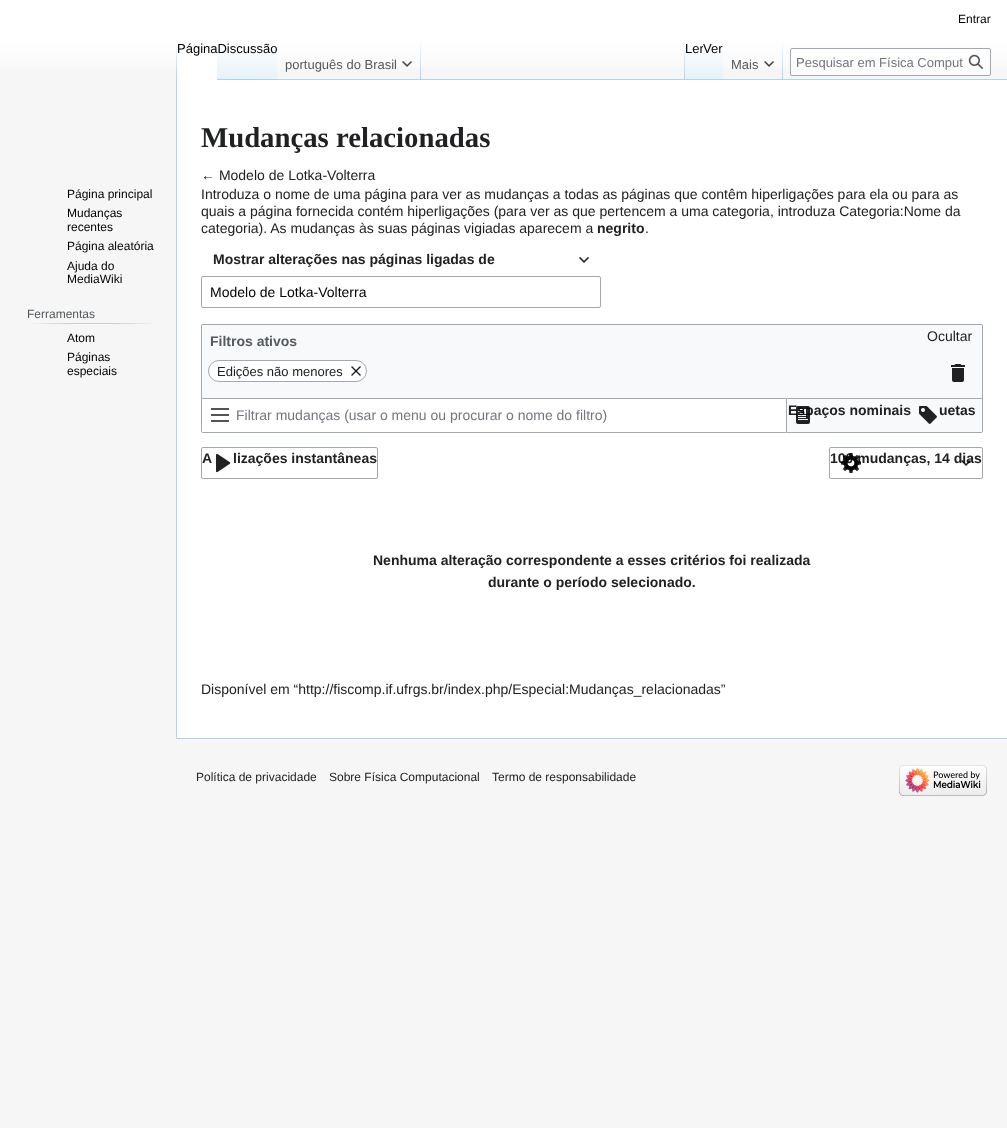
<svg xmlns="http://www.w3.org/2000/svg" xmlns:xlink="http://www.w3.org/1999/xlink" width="1007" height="1128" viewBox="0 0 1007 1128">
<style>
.cls-1{font:12px Liberation Sans;fill:#000000}
.cls-2{font:13px Liberation Sans;fill:#000000}
.cls-3{font:13px Liberation Sans;fill:#54595d}
.cls-4{font:13px Liberation Sans;fill:#72777d}
.cls-5{font:12px Liberation Sans;fill:#54595d}
.cls-6{font:bold 28.75px Liberation Serif;fill:#202122}
.cls-7{font:14px Liberation Sans;fill:#202122}
.cls-8{font:bold 14px Liberation Sans;fill:#202122}
.cls-9{font:14px Liberation Sans;fill:#000000}
.cls-10{font:bold 14px Liberation Sans;fill:#54595d}
.cls-11{font:13px Liberation Sans;fill:#202122}
.cls-12{font:14px Liberation Sans;fill:#72777d}
.cls-13{font:12px Liberation Sans;fill:#202122}
</style>
<defs>
<linearGradient id="g1" gradientUnits="userSpaceOnUse" x1="504" y1="0" x2="504" y2="80"><stop offset="0.5" stop-color="#ffffff"/><stop offset="1" stop-color="#f6f6f6"/></linearGradient>
<linearGradient id="g2" gradientUnits="userSpaceOnUse" x1="177" y1="40" x2="177" y2="80"><stop offset="0" stop-color="#a7d7f9" stop-opacity="0"/><stop offset="1" stop-color="#a7d7f9"/></linearGradient>
<linearGradient id="g3" gradientUnits="userSpaceOnUse" x1="247" y1="80" x2="247" y2="40"><stop offset="0" stop-color="#77c1f6"/><stop offset="0.03" stop-color="#e8f2f8"/><stop offset="1" stop-color="#ffffff"/></linearGradient>
<linearGradient id="g4" gradientUnits="userSpaceOnUse" x1="421" y1="40" x2="421" y2="80"><stop offset="0" stop-color="#a7d7f9" stop-opacity="0"/><stop offset="1" stop-color="#a7d7f9"/></linearGradient>
<linearGradient id="g5" gradientUnits="userSpaceOnUse" x1="685" y1="40" x2="685" y2="80"><stop offset="0" stop-color="#a7d7f9" stop-opacity="0"/><stop offset="1" stop-color="#a7d7f9"/></linearGradient>
<linearGradient id="g6" gradientUnits="userSpaceOnUse" x1="694" y1="80" x2="694" y2="40"><stop offset="0" stop-color="#77c1f6"/><stop offset="0.03" stop-color="#e8f2f8"/><stop offset="1" stop-color="#ffffff"/></linearGradient>
<linearGradient id="g7" gradientUnits="userSpaceOnUse" x1="783" y1="40" x2="783" y2="80"><stop offset="0" stop-color="#a7d7f9" stop-opacity="0"/><stop offset="1" stop-color="#a7d7f9"/></linearGradient>
<linearGradient id="g8" gradientUnits="userSpaceOnUse" x1="27" y1="324" x2="158" y2="324"><stop offset="0" stop-color="#f6f6f6"/><stop offset="0.33" stop-color="#c8ccd1"/><stop offset="0.66" stop-color="#c8ccd1"/><stop offset="1" stop-color="#f6f6f6"/></linearGradient>
<linearGradient id="g9" gradientUnits="userSpaceOnUse" x1="713" y1="80" x2="713" y2="40"><stop offset="0" stop-color="#77c1f6"/><stop offset="0.03" stop-color="#e8f2f8"/><stop offset="1" stop-color="#ffffff"/></linearGradient>
</defs>
<rect width="100%" height="100%" fill="#f6f6f6"/>
<rect fill="url(#g1)" x="0" y="0" width="1007" height="69"/>
<rect fill="#a7d7f9" x="176" y="738" width="831" height="1"/>
<rect fill="#a7d7f9" x="176" y="79" width="1" height="660"/>
<rect fill="url(#g2)" x="176" y="40" width="1" height="40"/>
<rect fill="#ffffff" x="177" y="51" width="40" height="29"/>
<rect fill="url(#g3)" x="217" y="46" width="60" height="34"/>
<rect fill="#a7d7f9" x="277" y="79" width="730" height="1"/>
<rect fill="url(#g4)" x="420" y="40" width="1" height="40"/>
<image xlink:href="image0.png" x="402" y="61" width="10" height="6"/>
<rect fill="url(#g5)" x="684" y="40" width="1" height="40"/>
<rect fill="url(#g6)" x="685" y="46" width="18" height="33"/>
<rect fill="url(#g7)" x="782" y="40" width="1" height="40"/>
<image xlink:href="image0.png" x="764" y="61" width="10" height="6"/>
<rect fill="#ffffff" fill-opacity="0.5" stroke="#a2a9b1" x="790.5" y="48.5" width="200" height="27" rx="1.5"/>
<image xlink:href="image1.png" x="968" y="54" width="15" height="15"/>
<rect fill="url(#g8)" x="27" y="323" width="131" height="1"/>
<rect fill="#ffffff" x="177" y="80" width="830" height="658"/>
<image xlink:href="image2.png" x="579" y="257" width="10" height="6"/>
<rect fill="none" stroke="#a2a9b1" x="201.5" y="276.5" width="399" height="31" rx="1.5"/>
<rect fill="#f8f9fa" x="201" y="324" width="782" height="109"/>
<rect fill="#a2a9b1" x="202" y="324" width="780" height="1"/>
<rect fill="#a2a9b1" x="982" y="325" width="1" height="73"/>
<rect fill="#a2a9b1" x="201" y="325" width="1" height="73"/>
<rect fill="#ffffff" stroke="#a2a9b1" x="208.5" y="360.5" width="158" height="21" rx="10.5"/>
<image xlink:href="image3.png" x="351" y="366" width="10" height="10"/>
<image xlink:href="image4.png" x="951" y="364" width="14" height="18"/>
<path fill="#ffffff" stroke="#a2a9b1" d="M201.5 398.5H786.5V432.5H203C202 432.5 201.5 432 201.5 431Z"/>
<image xlink:href="image5.png" x="211" y="408" width="18" height="14"/>
<rect fill="#a2a9b1" x="787" y="398" width="196" height="1"/>
<rect fill="#a2a9b1" x="982" y="398" width="1" height="34"/>
<rect fill="#a2a9b1" x="787" y="432" width="195" height="1"/>
<image xlink:href="image7.png" x="919" y="406" width="18" height="18"/>
<rect fill="none" stroke="#a2a9b1" x="201.5" y="447.5" width="176" height="31" rx="1.5"/>
<image xlink:href="image8.png" x="216" y="453" width="15" height="20"/>
<rect fill="none" stroke="#a2a9b1" x="829.5" y="447.5" width="153" height="31" rx="1.5"/>
<image xlink:href="image11.png" x="899" y="765" width="88" height="31"/>
<text class="cls-1" x="958" y="23">Entrar</text>
<text class="cls-2" x="177" y="53">PáginaDiscussão</text>
<text class="cls-3" x="285" y="69">português do Brasil</text>
<text class="cls-2" x="685" y="53">Ler</text>
<rect fill="url(#g9)" x="703" y="46" width="20" height="33"/>
<text class="cls-2" x="703" y="53">Ver</text>
<text class="cls-3" x="731" y="69">Mais</text>
<text class="cls-4" x="796" y="67">Pesquisar em Física Comput</text>
<text class="cls-1"><tspan x="67" y="198">Página principal</tspan><tspan x="67" y="217">Mudanças</tspan><tspan x="67" y="231">recentes</tspan><tspan x="67" y="250">Página aleatória</tspan><tspan x="67" y="270">Ajuda do</tspan><tspan x="67" y="283">MediaWiki</tspan></text>
<text class="cls-5" x="27" y="318">Ferramentas</text>
<text class="cls-1"><tspan x="67" y="342">Atom</tspan><tspan x="67" y="361">Páginas</tspan><tspan x="67" y="375">especiais</tspan></text>
<text class="cls-6" x="201" y="147">Mudanças relacionadas</text>
<text class="cls-7"><tspan x="201" y="180">← Modelo de Lotka-Volterra</tspan><tspan x="201" y="199">Introduza o nome de uma página para ver as mudanças a todas as páginas que contêm hiperligações para ela ou para as</tspan><tspan x="201" y="216">quais a página fornecida contém hiperligações (para ver as que pertencem a uma categoria, introduza Categoria:Nome da</tspan><tspan x="201" y="233">categoria). As mudanças às suas páginas vigiadas aparecem a</tspan></text>
<text class="cls-8" x="597" y="233">negrito</text>
<text class="cls-7" x="645" y="233">.</text>
<text class="cls-8" x="213" y="264">Mostrar alterações nas páginas ligadas de</text>
<text class="cls-9" x="210" y="297">Modelo de Lotka-Volterra</text>
<text class="cls-10" x="210" y="346">Filtros ativos</text>
<text class="cls-7" x="927" y="341">Ocultar</text>
<text class="cls-11" x="217" y="376">Edições não menores</text>
<text class="cls-12" x="236" y="420">Filtrar mudanças (usar o menu ou procurar o nome do filtro)</text>
<text class="cls-8" x="788" y="415">Espaços nominais</text>
<image xlink:href="image6.png" x="796" y="406" width="14" height="18"/>
<text class="cls-8" x="939" y="415">uetas</text>
<text class="cls-8" x="202" y="463">A</text>
<text class="cls-8" x="233" y="463">lizações instantâneas</text>
<text class="cls-8" x="830" y="463">100 mudanças, 14 dias</text>
<image xlink:href="image9.png" x="841" y="453" width="20" height="20"/>
<image xlink:href="image10.png" x="961" y="460" width="10" height="6"/>
<text class="cls-8" x="373" y="565">Nenhuma alteração correspondente a esses critérios foi realizada</text>
<text class="cls-8" x="488" y="587">durante o período selecionado.</text>
<text class="cls-7" x="201" y="694">Disponível em “http://fiscomp.if.ufrgs.br/index.php/Especial:Mudanças_relacionadas”</text>
<text class="cls-13" x="196" y="781">Política de privacidade</text>
<text class="cls-13" x="329" y="781">Sobre Física Computacional</text>
<text class="cls-13" x="492" y="781">Termo de responsabilidade</text>
</svg>
